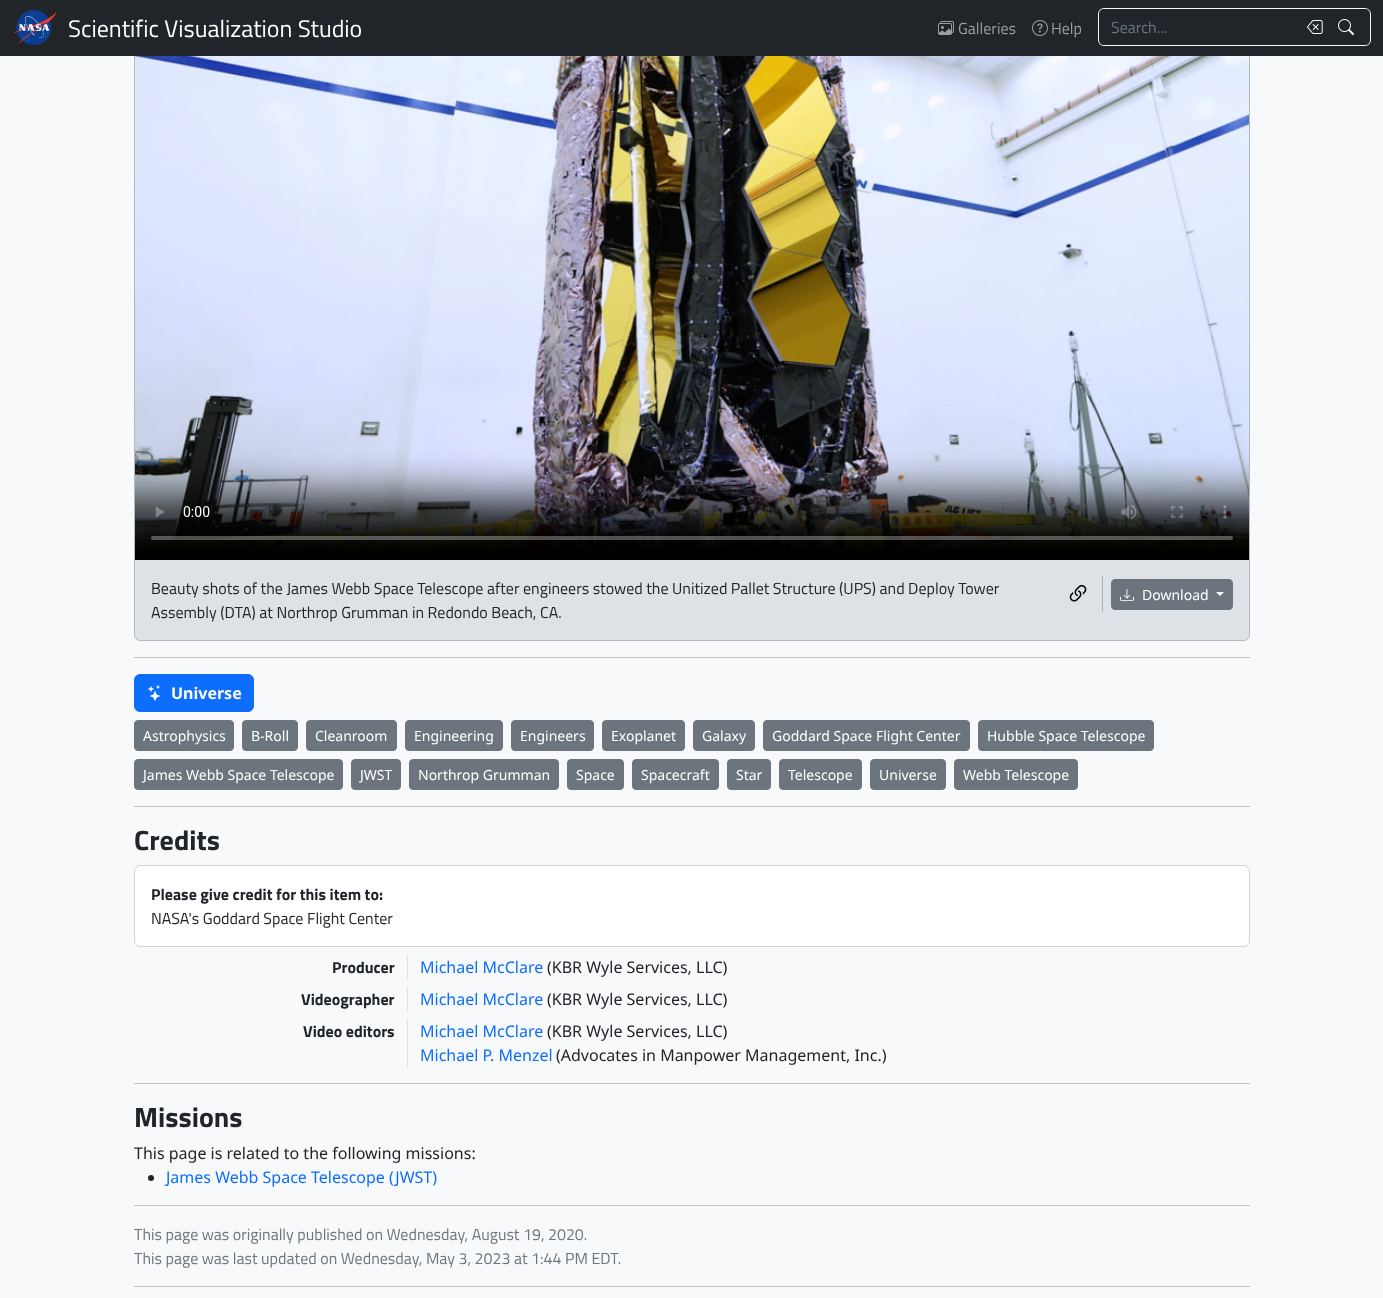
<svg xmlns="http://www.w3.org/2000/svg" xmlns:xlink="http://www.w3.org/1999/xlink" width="1383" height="1298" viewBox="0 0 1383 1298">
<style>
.cls-1{font:24px Titillium Web;fill:#ffffff}
.cls-2{font:16px Titillium Web;fill:#9b9d9f}
.cls-3{font:16px Titillium Web;fill:#6c757d}
.cls-4{font:16px Titillium Web;fill:#212529}
.cls-5{font:14px Noto Sans;fill:#ffffff}
.cls-6{font:bold 16px Noto Sans;fill:#ffffff}
.cls-7{font:bold 28px Titillium Web;fill:#212529}
.cls-8{font:bold 16px Titillium Web;fill:#212529}
.cls-9{font:16px Noto Sans;fill:#0d6efd}
.cls-10{font:16px Noto Sans;fill:#212529}
</style>
<rect width="100%" height="100%" fill="#f8f9fa"/>
<rect fill="#dee2e6" x="134" y="-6" width="1116" height="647" rx="6"/>
<rect fill="none" stroke="#000000" stroke-opacity="0.18" x="134.5" y="-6.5" width="1115" height="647" rx="5.5"/>
<rect fill="#212529" x="0" y="0" width="1383" height="56"/>
<image xlink:href="image0.png" x="14" y="10" width="43" height="35"/>
<image xlink:href="image1.png" x="938" y="21" width="16" height="14"/>
<image xlink:href="image2.png" x="1032" y="20" width="16" height="16"/>
<path fill="#f8f9fa" fill-rule="evenodd" d="M1104 8H1296V46H1104C1101 46 1098 43 1098 40V14C1098 11 1101 8 1104 8ZM1104 9H1296V45H1104C1101 45 1099 43 1099 40V14C1099 11 1101 9 1104 9Z"/>
<rect fill="#f8f9fa" x="1295" y="8" width="32" height="1"/>
<rect fill="#f8f9fa" x="1295" y="45" width="32" height="1"/>
<image xlink:href="image3.png" x="1307" y="20" width="16" height="14"/>
<path fill="#212529" d="M1326 8H1365C1368.5 8 1371 10.5 1371 14V40C1371 43.5 1368.5 46 1365 46H1326Z"/>
<path fill="#f8f9fa" fill-rule="evenodd" d="M1326 8H1365C1368 8 1371 11 1371 14V40C1371 43 1368 46 1365 46H1326ZM1326 9H1365C1368 9 1370 11 1370 14V40C1370 43 1368 45 1365 45H1326Z"/>
<image xlink:href="image4.png" x="1338" y="19" width="16" height="16"/>
<image xlink:href="image5.png" x="135" y="56" width="1114" height="504"/>
<image xlink:href="image6.png" x="1069" y="585" width="18" height="17"/>
<rect fill="#afb3b7" x="1102" y="576" width="1" height="36"/>
<rect fill="#6c757d" stroke="#6c757d" x="1111.5" y="579.5" width="121" height="30" rx="3.5"/>
<image xlink:href="image7.png" x="1120" y="589" width="14" height="12"/>
<path fill="#ffffff" d="M1216 592H1224L1220 596Z"/>
<rect fill="#c2c4c6" x="134" y="657" width="1116" height="1"/>
<rect fill="#0d6efd" stroke="#0d6efd" x="134.5" y="674.5" width="119" height="37" rx="5.5"/>
<image xlink:href="image8.png" x="148" y="685" width="12" height="16"/>
<rect fill="#6c757d" stroke="#6c757d" x="134.5" y="720.5" width="99" height="30" rx="3.5"/>
<rect fill="#6c757d" stroke="#6c757d" x="242.5" y="720.5" width="55" height="30" rx="3.5"/>
<rect fill="#6c757d" stroke="#6c757d" x="306.5" y="720.5" width="90" height="30" rx="3.5"/>
<rect fill="#6c757d" stroke="#6c757d" x="405.5" y="720.5" width="97" height="30" rx="3.5"/>
<rect fill="#6c757d" stroke="#6c757d" x="511.5" y="720.5" width="82" height="30" rx="3.5"/>
<rect fill="#6c757d" stroke="#6c757d" x="602.5" y="720.5" width="82" height="30" rx="3.5"/>
<rect fill="#6c757d" stroke="#6c757d" x="693.5" y="720.5" width="61" height="30" rx="3.5"/>
<rect fill="#6c757d" stroke="#6c757d" x="763.5" y="720.5" width="206" height="30" rx="3.5"/>
<rect fill="#6c757d" stroke="#6c757d" x="978.5" y="720.5" width="175" height="30" rx="3.5"/>
<rect fill="#6c757d" stroke="#6c757d" x="134.5" y="759.5" width="208" height="30" rx="3.5"/>
<rect fill="#6c757d" stroke="#6c757d" x="351.5" y="759.5" width="49" height="30" rx="3.5"/>
<rect fill="#6c757d" stroke="#6c757d" x="409.5" y="759.5" width="149" height="30" rx="3.5"/>
<rect fill="#6c757d" stroke="#6c757d" x="567.5" y="759.5" width="56" height="30" rx="3.5"/>
<rect fill="#6c757d" stroke="#6c757d" x="632.5" y="759.5" width="86" height="30" rx="3.5"/>
<rect fill="#6c757d" stroke="#6c757d" x="727.5" y="759.5" width="43" height="30" rx="3.5"/>
<rect fill="#6c757d" stroke="#6c757d" x="779.5" y="759.5" width="82" height="30" rx="3.5"/>
<rect fill="#6c757d" stroke="#6c757d" x="870.5" y="759.5" width="75" height="30" rx="3.5"/>
<rect fill="#6c757d" stroke="#6c757d" x="954.5" y="759.5" width="123" height="30" rx="3.5"/>
<rect fill="#c2c4c6" x="134" y="806" width="1116" height="1"/>
<rect fill="#ffffff" stroke="#d2d2d2" x="134.5" y="865.5" width="1115" height="81" rx="5.5"/>
<rect fill="#dee2e6" x="407" y="955" width="1" height="24"/>
<rect fill="#dee2e6" x="407" y="987" width="1" height="24"/>
<rect fill="#dee2e6" x="407" y="1019" width="1" height="48"/>
<rect fill="#c2c4c6" x="134" y="1083" width="1116" height="1"/>
<circle fill="#212529" cx="151" cy="1178" r="3"/>
<rect fill="#c2c4c6" x="134" y="1205" width="1116" height="1"/>
<rect fill="#c2c4c6" x="134" y="1286" width="1116" height="1"/>
<text class="cls-1" x="68" y="37">Scientific Visualization Studio</text>
<text class="cls-2" x="958" y="34">Galleries</text>
<text class="cls-2" x="1051" y="34">Help</text>
<text class="cls-3" x="1111" y="33">Search...</text>
<text class="cls-4"><tspan x="151" y="594">Beauty shots of the James Webb Space Telescope after engineers stowed the Unitized Pallet Structure (UPS) and Deploy Tower</tspan><tspan x="151" y="618">Assembly (DTA) at Northrop Grumman in Redondo Beach, CA.</tspan></text>
<text class="cls-5" x="1142" y="600">Download</text>
<text class="cls-6" x="171" y="699">Universe</text>
<text class="cls-5" x="143" y="741">Astrophysics</text>
<text class="cls-5" x="251" y="741">B-Roll</text>
<text class="cls-5" x="315" y="741">Cleanroom</text>
<text class="cls-5" x="414" y="741">Engineering</text>
<text class="cls-5" x="520" y="741">Engineers</text>
<text class="cls-5" x="611" y="741">Exoplanet</text>
<text class="cls-5" x="702" y="741">Galaxy</text>
<text class="cls-5" x="772" y="741">Goddard Space Flight Center</text>
<text class="cls-5" x="987" y="741">Hubble Space Telescope</text>
<text class="cls-5" x="143" y="780">James Webb Space Telescope</text>
<text class="cls-5" x="360" y="780">JWST</text>
<text class="cls-5" x="418" y="780">Northrop Grumman</text>
<text class="cls-5" x="576" y="780">Space</text>
<text class="cls-5" x="641" y="780">Spacecraft</text>
<text class="cls-5" x="736" y="780">Star</text>
<text class="cls-5" x="788" y="780">Telescope</text>
<text class="cls-5" x="879" y="780">Universe</text>
<text class="cls-5" x="963" y="780">Webb Telescope</text>
<text class="cls-7" x="134" y="850">Credits</text>
<text class="cls-8" x="151" y="900">Please give credit for this item to:</text>
<text class="cls-4" x="151" y="924">NASA's Goddard Space Flight Center</text>
<text class="cls-8" x="332" y="973">Producer</text>
<text class="cls-9" x="420" y="973">Michael McClare</text>
<text class="cls-10" x="547" y="973">(KBR Wyle Services, LLC)</text>
<text class="cls-8" x="301" y="1005">Videographer</text>
<text class="cls-9" x="420" y="1005">Michael McClare</text>
<text class="cls-10" x="547" y="1005">(KBR Wyle Services, LLC)</text>
<text class="cls-8" x="303" y="1037">Video editors</text>
<text class="cls-9" x="420" y="1037">Michael McClare</text>
<text class="cls-10" x="547" y="1037">(KBR Wyle Services, LLC)</text>
<text class="cls-9" x="420" y="1061">Michael P. Menzel</text>
<text class="cls-10" x="556" y="1061">(Advocates in Manpower Management, Inc.)</text>
<text class="cls-7" x="134" y="1127">Missions</text>
<text class="cls-10" x="134" y="1159">This page is related to the following missions:</text>
<text class="cls-9" x="166" y="1183">James Webb Space Telescope (JWST)</text>
<text class="cls-3"><tspan x="134" y="1240">This page was originally published on Wednesday, August 19, 2020.</tspan><tspan x="134" y="1264">This page was last updated on Wednesday, May 3, 2023 at 1:44 PM EDT.</tspan></text>
</svg>
